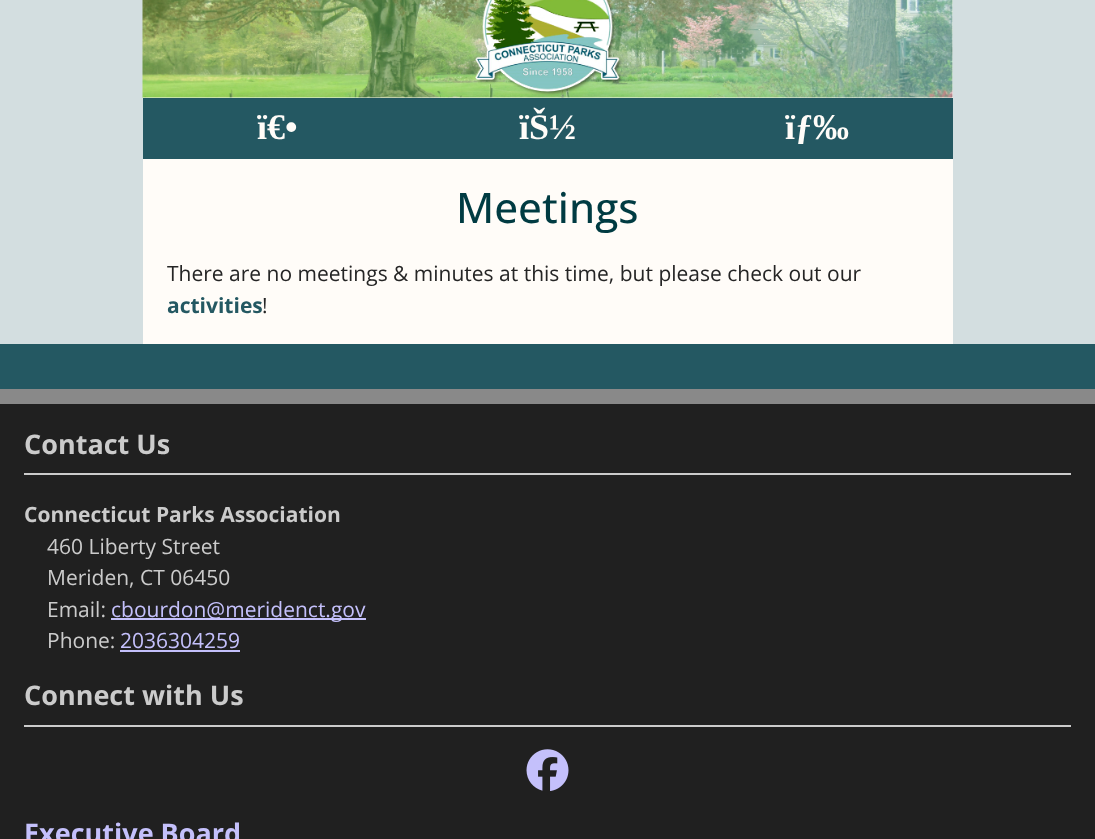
<svg xmlns="http://www.w3.org/2000/svg" xmlns:xlink="http://www.w3.org/1999/xlink" width="1095" height="839" viewBox="0 0 1095 839">
<style>
.cls-1{font:bold 36px Liberation Serif;fill:#fffcf8}
.cls-2{font:500 42px Open Sans;fill:#003b42}
.cls-3{font:21px Open Sans;fill:#252525}
.cls-4{font:bold 21px Open Sans;fill:#245862}
.cls-5{font:bold 27px Open Sans;fill:#cbcbcb}
.cls-6{font:bold 21px Open Sans;fill:#cbcbcb}
.cls-7{font:21px Open Sans;fill:#cbcbcb}
.cls-8{font:21px Open Sans;fill:#c4c0fb}
.cls-9{font:bold 27px Open Sans;fill:#c4c0fb}
</style>
<rect width="100%" height="100%" fill="#d3dee0"/>
<rect fill="#fffcf8" x="143" y="0" width="810" height="344"/>
<image xlink:href="image0.png" x="142" y="0" width="811" height="98"/>
<rect fill="#245862" x="143" y="98" width="810" height="61"/>
<rect fill="#245862" x="0" y="344" width="1095" height="45"/>
<rect fill="#202020" x="0" y="404" width="1095" height="435"/>
<rect fill="#898989" x="0" y="389" width="1095" height="15"/>
<rect fill="#cbcbcb" x="24" y="473" width="1047" height="2"/>
<rect fill="#c4c0fb" x="111" y="618" width="255" height="2"/>
<rect fill="#c4c0fb" x="120" y="650" width="120" height="2"/>
<rect fill="#cbcbcb" x="24" y="725" width="1047" height="2"/>
<image xlink:href="image1.png" x="526" y="749" width="43" height="42"/>
<text class="cls-1" x="257" y="139">ï€•</text>
<text class="cls-1" x="519" y="139">ïŠ½</text>
<text class="cls-1" x="785" y="139">ïƒ‰</text>
<text class="cls-2" x="456" y="223">Meetings</text>
<text class="cls-3" x="167" y="281">There are no meetings &amp; minutes at this time, but please check out our</text>
<text class="cls-4" x="167" y="313">activities</text>
<text class="cls-3" x="262" y="313">!</text>
<text class="cls-5" x="24" y="454">Contact Us</text>
<text class="cls-6" x="24" y="522">Connecticut Parks Association</text>
<text class="cls-7"><tspan x="47" y="554">460 Liberty Street</tspan><tspan x="47" y="585">Meriden, CT 06450</tspan><tspan x="47" y="617">Email:</tspan></text>
<text class="cls-8" x="111" y="617">cbourdon@meridenct.gov</text>
<text class="cls-7" x="47" y="648">Phone:</text>
<text class="cls-8" x="120" y="648">2036304259</text>
<text class="cls-5" x="24" y="705">Connect with Us</text>
<text class="cls-9" x="24" y="843">Executive Board</text>
</svg>
